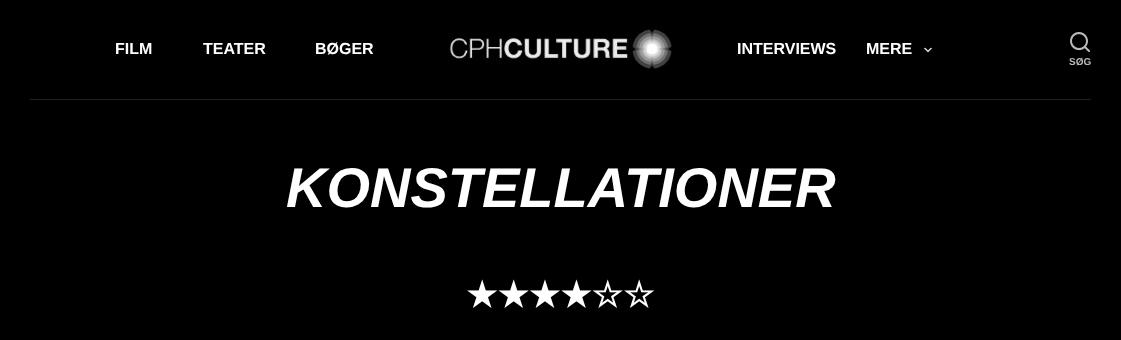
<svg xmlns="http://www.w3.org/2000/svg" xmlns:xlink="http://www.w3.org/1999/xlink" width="1121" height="340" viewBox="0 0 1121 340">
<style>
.cls-1{font:bold 16px Liberation Sans;fill:#ffffff}
.cls-2{font:bold 10px Liberation Sans;fill:#bababa}
.cls-3{font:italic bold 56px Liberation Sans;fill:#ffffff}
.cls-4{font:bold 35px DejaVu Sans;fill:#ffffff}
</style>
<rect width="100%" height="100%" fill="#000000"/>
<rect fill="#212121" x="30" y="99" width="1061" height="1"/>
<image xlink:href="image0.png" x="449" y="29" width="223" height="40"/>
<image xlink:href="image1.png" x="924" y="47" width="8" height="6"/>
<image xlink:href="image2.png" x="1070" y="32" width="20" height="20"/>
<text class="cls-1" x="115" y="54">FILM</text>
<text class="cls-1" x="203" y="54">TEATER</text>
<text class="cls-1" x="315" y="54">BØGER</text>
<text class="cls-1" x="737" y="54">INTERVIEWS</text>
<text class="cls-1" x="866" y="54">MERE</text>
<text class="cls-2" x="1069" y="65">SØG</text>
<text class="cls-3" x="286" y="207">KONSTELLATIONER</text>
<text class="cls-4" x="466" y="307">★★★★☆☆</text>
</svg>
